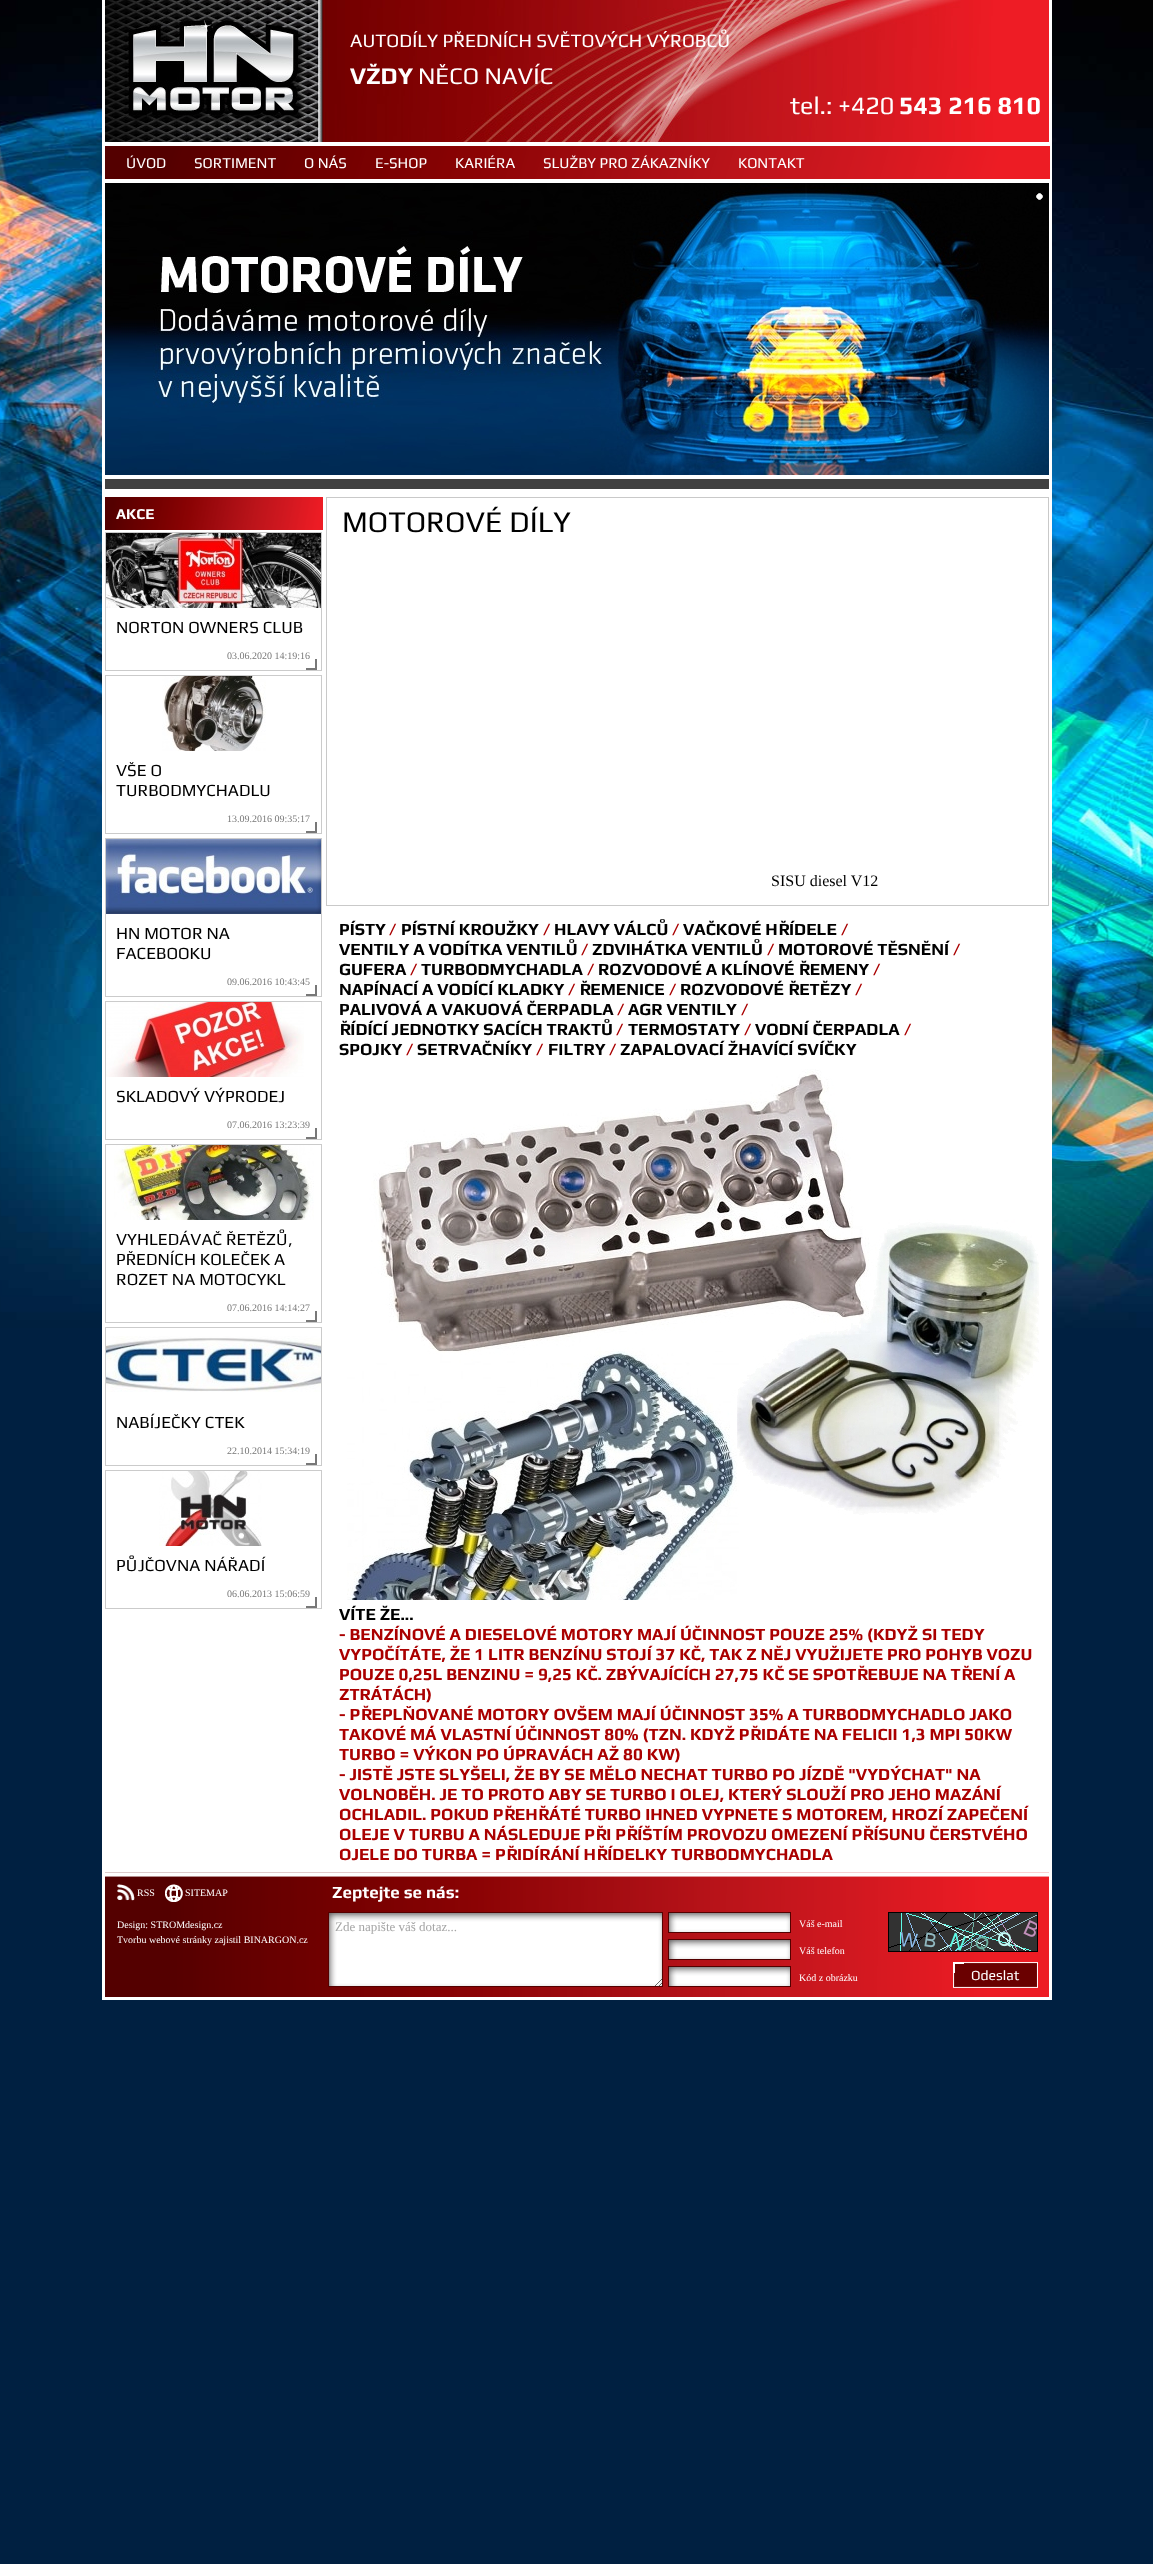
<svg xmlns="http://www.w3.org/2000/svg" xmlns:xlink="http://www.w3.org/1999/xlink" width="1153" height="2564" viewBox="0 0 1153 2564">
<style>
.cls-1{font:19px Play;fill:#ffffff}
.cls-2{font:bold 24px Play;fill:#ffffff}
.cls-3{font:24px Play;fill:#ffffff}
.cls-4{font:25px Play;fill:#ffffff}
.cls-5{font:bold 25px Play;fill:#ffffff}
.cls-6{font:15px Play;fill:#ffffff}
.cls-7{font:bold 15px Play;fill:#ffffff}
.cls-8{font:17px Play;fill:#000000}
.cls-9{font:10px Liberation Serif;fill:#787878}
.cls-10{font:30px Play;fill:#000000}
.cls-11{font:16px Liberation Serif;fill:#000000}
.cls-12{font:bold 17px Play;fill:#000000}
.cls-13{font:bold 17px Play;fill:#aa0000}
.cls-14{font:10px Liberation Serif;fill:#ffffff}
.cls-15{font:bold 17px Play;fill:#ffffff}
.cls-16{font:13px Liberation Serif;fill:#a5a5a5}
.cls-17{font:14px Play;fill:#ffffff}
</style>
<rect width="100%" height="100%" fill="#002041"/>
<image xlink:href="image0.png" x="0" y="0" width="1153" height="1328"/>
<rect fill="#ffffff" x="102" y="0" width="950" height="2000"/>
<image xlink:href="image1.png" x="105" y="0" width="944" height="142"/>
<image xlink:href="image2.png" x="105" y="146" width="945" height="33"/>
<image xlink:href="image3.png" x="105" y="183" width="944" height="292"/>
<image xlink:href="image4.png" x="1036" y="193" width="7" height="7"/>
<rect fill="#414141" x="105" y="479" width="944" height="10"/>
<image xlink:href="image5.png" x="105" y="497" width="218" height="33"/>
<rect fill="none" stroke="#cbcbcb" x="105.5" y="532.5" width="216" height="138"/>
<image xlink:href="image6.png" x="106" y="533" width="215" height="75"/>
<rect fill="none" stroke="#cbcbcb" x="105.5" y="675.5" width="216" height="158"/>
<image xlink:href="image8.png" x="162" y="676" width="104" height="75"/>
<rect fill="none" stroke="#cbcbcb" x="105.5" y="838.5" width="216" height="158"/>
<image xlink:href="image10.png" x="106" y="839" width="215" height="75"/>
<rect fill="none" stroke="#cbcbcb" x="105.5" y="1001.5" width="216" height="138"/>
<image xlink:href="image12.png" x="106" y="1002" width="198" height="75"/>
<rect fill="none" stroke="#cbcbcb" x="105.5" y="1144.5" width="216" height="178"/>
<image xlink:href="image14.png" x="114" y="1145" width="200" height="75"/>
<rect fill="none" stroke="#cbcbcb" x="105.5" y="1327.5" width="216" height="138"/>
<image xlink:href="image15.png" x="106" y="1336" width="215" height="56"/>
<rect fill="none" stroke="#cbcbcb" x="105.5" y="1470.5" width="216" height="138"/>
<image xlink:href="image16.png" x="159" y="1471" width="103" height="75"/>
<rect fill="none" stroke="#c9c9c9" x="326.5" y="497.5" width="722" height="408"/>
<image xlink:href="image17.png" x="347" y="1069" width="692" height="531"/>
<image xlink:href="image18.png" x="105" y="1872" width="944" height="125"/>
<image xlink:href="image19.png" x="117" y="1884" width="18" height="17"/>
<image xlink:href="image20.png" x="165" y="1884" width="18" height="18"/>
<image xlink:href="image21.png" x="328" y="1912" width="335" height="75"/>
<image xlink:href="image22.png" x="668" y="1912" width="123" height="21"/>
<image xlink:href="image22.png" x="668" y="1939" width="123" height="21"/>
<image xlink:href="image22.png" x="668" y="1966" width="123" height="21"/>
<rect fill="none" stroke="#000000" x="888.5" y="1912.5" width="149" height="39"/>
<image xlink:href="image23.png" x="889" y="1913" width="148" height="38"/>
<image xlink:href="image24.png" x="953" y="1962" width="85" height="26"/>
<text class="cls-1" x="350" y="47">AUTODÍLY PŘEDNÍCH SVĚTOVÝCH VÝROBCŮ</text>
<text class="cls-2" x="350" y="84">VŽDY</text>
<text class="cls-3" x="418" y="84">NĚCO NAVÍC</text>
<text class="cls-4" x="790" y="114">tel.: +420</text>
<text class="cls-5" x="899" y="114">543 216 810</text>
<text class="cls-6" x="126" y="168">ÚVOD</text>
<text class="cls-6" x="194" y="168">SORTIMENT</text>
<text class="cls-6" x="304" y="168">O NÁS</text>
<text class="cls-6" x="375" y="168">E-SHOP</text>
<text class="cls-6" x="455" y="168">KARIÉRA</text>
<text class="cls-6" x="543" y="168">SLUŽBY PRO ZÁKAZNÍKY</text>
<text class="cls-6" x="738" y="168">KONTAKT</text>
<text class="cls-7" x="116" y="519">AKCE</text>
<text class="cls-8" x="116" y="633">NORTON OWNERS CLUB</text>
<text class="cls-9" x="227" y="659">03.06.2020 14:19:16</text>
<image xlink:href="image7.png" x="306" y="659" width="11" height="11"/>
<text class="cls-8"><tspan x="116" y="776">VŠE O</tspan><tspan x="116" y="796">TURBODMYCHADLU</tspan></text>
<text class="cls-9" x="227" y="822">13.09.2016 09:35:17</text>
<image xlink:href="image9.png" x="306" y="822" width="11" height="11"/>
<text class="cls-8"><tspan x="116" y="939">HN MOTOR NA</tspan><tspan x="116" y="959">FACEBOOKU</tspan></text>
<text class="cls-9" x="227" y="985">09.06.2016 10:43:45</text>
<image xlink:href="image11.png" x="306" y="985" width="11" height="11"/>
<text class="cls-8" x="116" y="1102">SKLADOVÝ VÝPRODEJ</text>
<text class="cls-9" x="227" y="1128">07.06.2016 13:23:39</text>
<image xlink:href="image13.png" x="306" y="1128" width="11" height="11"/>
<text class="cls-8"><tspan x="116" y="1245">VYHLEDÁVAČ ŘETĚZŮ,</tspan><tspan x="116" y="1265">PŘEDNÍCH KOLEČEK A</tspan><tspan x="116" y="1285">ROZET NA MOTOCYKL</tspan></text>
<text class="cls-9" x="227" y="1311">07.06.2016 14:14:27</text>
<image xlink:href="image9.png" x="306" y="1311" width="11" height="11"/>
<text class="cls-8" x="116" y="1428">NABÍJEČKY CTEK</text>
<text class="cls-9" x="227" y="1454">22.10.2014 15:34:19</text>
<image xlink:href="image13.png" x="306" y="1454" width="11" height="11"/>
<text class="cls-8" x="116" y="1571">PŮJČOVNA NÁŘADÍ</text>
<text class="cls-9" x="227" y="1597">06.06.2013 15:06:59</text>
<image xlink:href="image13.png" x="306" y="1597" width="11" height="11"/>
<text class="cls-10" x="342" y="532">MOTOROVÉ DÍLY</text>
<text class="cls-11" x="771" y="886">SISU diesel V12</text>
<text class="cls-12" x="339" y="935">PÍSTY</text>
<text class="cls-13" x="389" y="935">/</text>
<text class="cls-12" x="401" y="935">PÍSTNÍ KROUŽKY</text>
<text class="cls-13" x="543" y="935">/</text>
<text class="cls-12" x="554" y="935">HLAVY VÁLCŮ</text>
<text class="cls-13" x="672" y="935">/</text>
<text class="cls-12" x="683" y="935">VAČKOVÉ HŘÍDELE</text>
<text class="cls-13" x="841" y="935">/</text>
<text class="cls-12" x="339" y="955">VENTILY A VODÍTKA VENTILŮ</text>
<text class="cls-13" x="581" y="955">/</text>
<text class="cls-12" x="592" y="955">ZDVIHÁTKA VENTILŮ</text>
<text class="cls-13" x="767" y="955">/</text>
<text class="cls-12" x="778" y="955">MOTOROVÉ TĚSNĚNÍ</text>
<text class="cls-13" x="953" y="955">/</text>
<text class="cls-12" x="339" y="975">GUFERA</text>
<text class="cls-13" x="410" y="975">/</text>
<text class="cls-12" x="421" y="975">TURBODMYCHADLA</text>
<text class="cls-13" x="587" y="975">/</text>
<text class="cls-12" x="598" y="975">ROZVODOVÉ A KLÍNOVÉ ŘEMENY</text>
<text class="cls-13" x="873" y="975">/</text>
<text class="cls-12" x="339" y="995">NAPÍNACÍ A VODÍCÍ KLADKY</text>
<text class="cls-13" x="568" y="995">/</text>
<text class="cls-12" x="579" y="995">ŘEMENICE</text>
<text class="cls-13" x="669" y="995">/</text>
<text class="cls-12" x="680" y="995">ROZVODOVÉ ŘETĚZY</text>
<text class="cls-13" x="855" y="995">/</text>
<text class="cls-12" x="339" y="1015">PALIVOVÁ A VAKUOVÁ ČERPADLA</text>
<text class="cls-13" x="617" y="1015">/</text>
<text class="cls-12" x="628" y="1015">AGR VENTILY</text>
<text class="cls-13" x="741" y="1015">/</text>
<text class="cls-12" x="339" y="1035">ŘÍDÍCÍ JEDNOTKY SACÍCH TRAKTŮ</text>
<text class="cls-13" x="616" y="1035">/</text>
<text class="cls-12" x="628" y="1035">TERMOSTATY</text>
<text class="cls-13" x="744" y="1035">/</text>
<text class="cls-12" x="755" y="1035">VODNÍ ČERPADLA</text>
<text class="cls-13" x="904" y="1035">/</text>
<text class="cls-12" x="339" y="1055">SPOJKY</text>
<text class="cls-13" x="406" y="1055">/</text>
<text class="cls-12" x="417" y="1055">SETRVAČNÍKY</text>
<text class="cls-13" x="536" y="1055">/</text>
<text class="cls-12" x="548" y="1055">FILTRY</text>
<text class="cls-13" x="609" y="1055">/</text>
<text class="cls-12" x="620" y="1055">ZAPALOVACÍ ŽHAVÍCÍ SVÍČKY</text>
<text class="cls-12" x="339" y="1620">VÍTE ŽE...</text>
<text class="cls-13"><tspan x="339" y="1640">- BENZÍNOVÉ A DIESELOVÉ MOTORY MAJÍ ÚČINNOST POUZE 25% (KDYŽ SI TEDY</tspan><tspan x="339" y="1660">VYPOČÍTÁTE, ŽE 1 LITR BENZÍNU STOJÍ 37 KČ, TAK Z NĚJ VYUŽIJETE PRO POHYB VOZU</tspan><tspan x="339" y="1680">POUZE 0,25L BENZINU = 9,25 KČ. ZBÝVAJÍCÍCH 27,75 KČ SE SPOTŘEBUJE NA TŘENÍ A</tspan><tspan x="339" y="1700">ZTRÁTÁCH)</tspan><tspan x="339" y="1720">- PŘEPLŇOVANÉ MOTORY OVŠEM MAJÍ ÚČINNOST 35% A TURBODMYCHADLO JAKO</tspan><tspan x="339" y="1740">TAKOVÉ MÁ VLASTNÍ ÚČINNOST 80% (TZN. KDYŽ PŘIDÁTE NA FELICII 1,3 MPI 50KW</tspan><tspan x="339" y="1760">TURBO = VÝKON PO ÚPRAVÁCH AŽ 80 KW)</tspan><tspan x="339" y="1780">- JISTĚ JSTE SLYŠELI, ŽE BY SE MĚLO NECHAT TURBO PO JÍZDĚ "VYDÝCHAT" NA</tspan><tspan x="339" y="1800">VOLNOBĚH. JE TO PROTO ABY SE TURBO I OLEJ, KTERÝ SLOUŽÍ PRO JEHO MAZÁNÍ</tspan><tspan x="339" y="1820">OCHLADIL. POKUD PŘEHŘÁTÉ TURBO IHNED VYPNETE S MOTOREM, HROZÍ ZAPEČENÍ</tspan><tspan x="339" y="1840">OLEJE V TURBU A NÁSLEDUJE PŘI PŘÍŠTÍM PROVOZU OMEZENÍ PŘÍSUNU ČERSTVÉHO</tspan><tspan x="339" y="1860">OJELE DO TURBA = PŘIDÍRÁNÍ HŘÍDELKY TURBODMYCHADLA</tspan></text>
<text class="cls-14" x="137" y="1896">RSS</text>
<text class="cls-14" x="185" y="1896">SITEMAP</text>
<text class="cls-14"><tspan x="117" y="1928">Design: STROMdesign.cz</tspan><tspan x="117" y="1943">Tvorbu webové stránky zajistil BINARGON.cz</tspan></text>
<text class="cls-15" x="332" y="1898">Zeptejte se nás:</text>
<text class="cls-16" x="335" y="1931">Zde napište váš dotaz...</text>
<text class="cls-14" x="799" y="1927">Váš e-mail</text>
<text class="cls-14" x="799" y="1954">Váš telefon</text>
<text class="cls-14" x="799" y="1981">Kód z obrázku</text>
<text class="cls-17" x="971" y="1980">Odeslat</text>
</svg>
